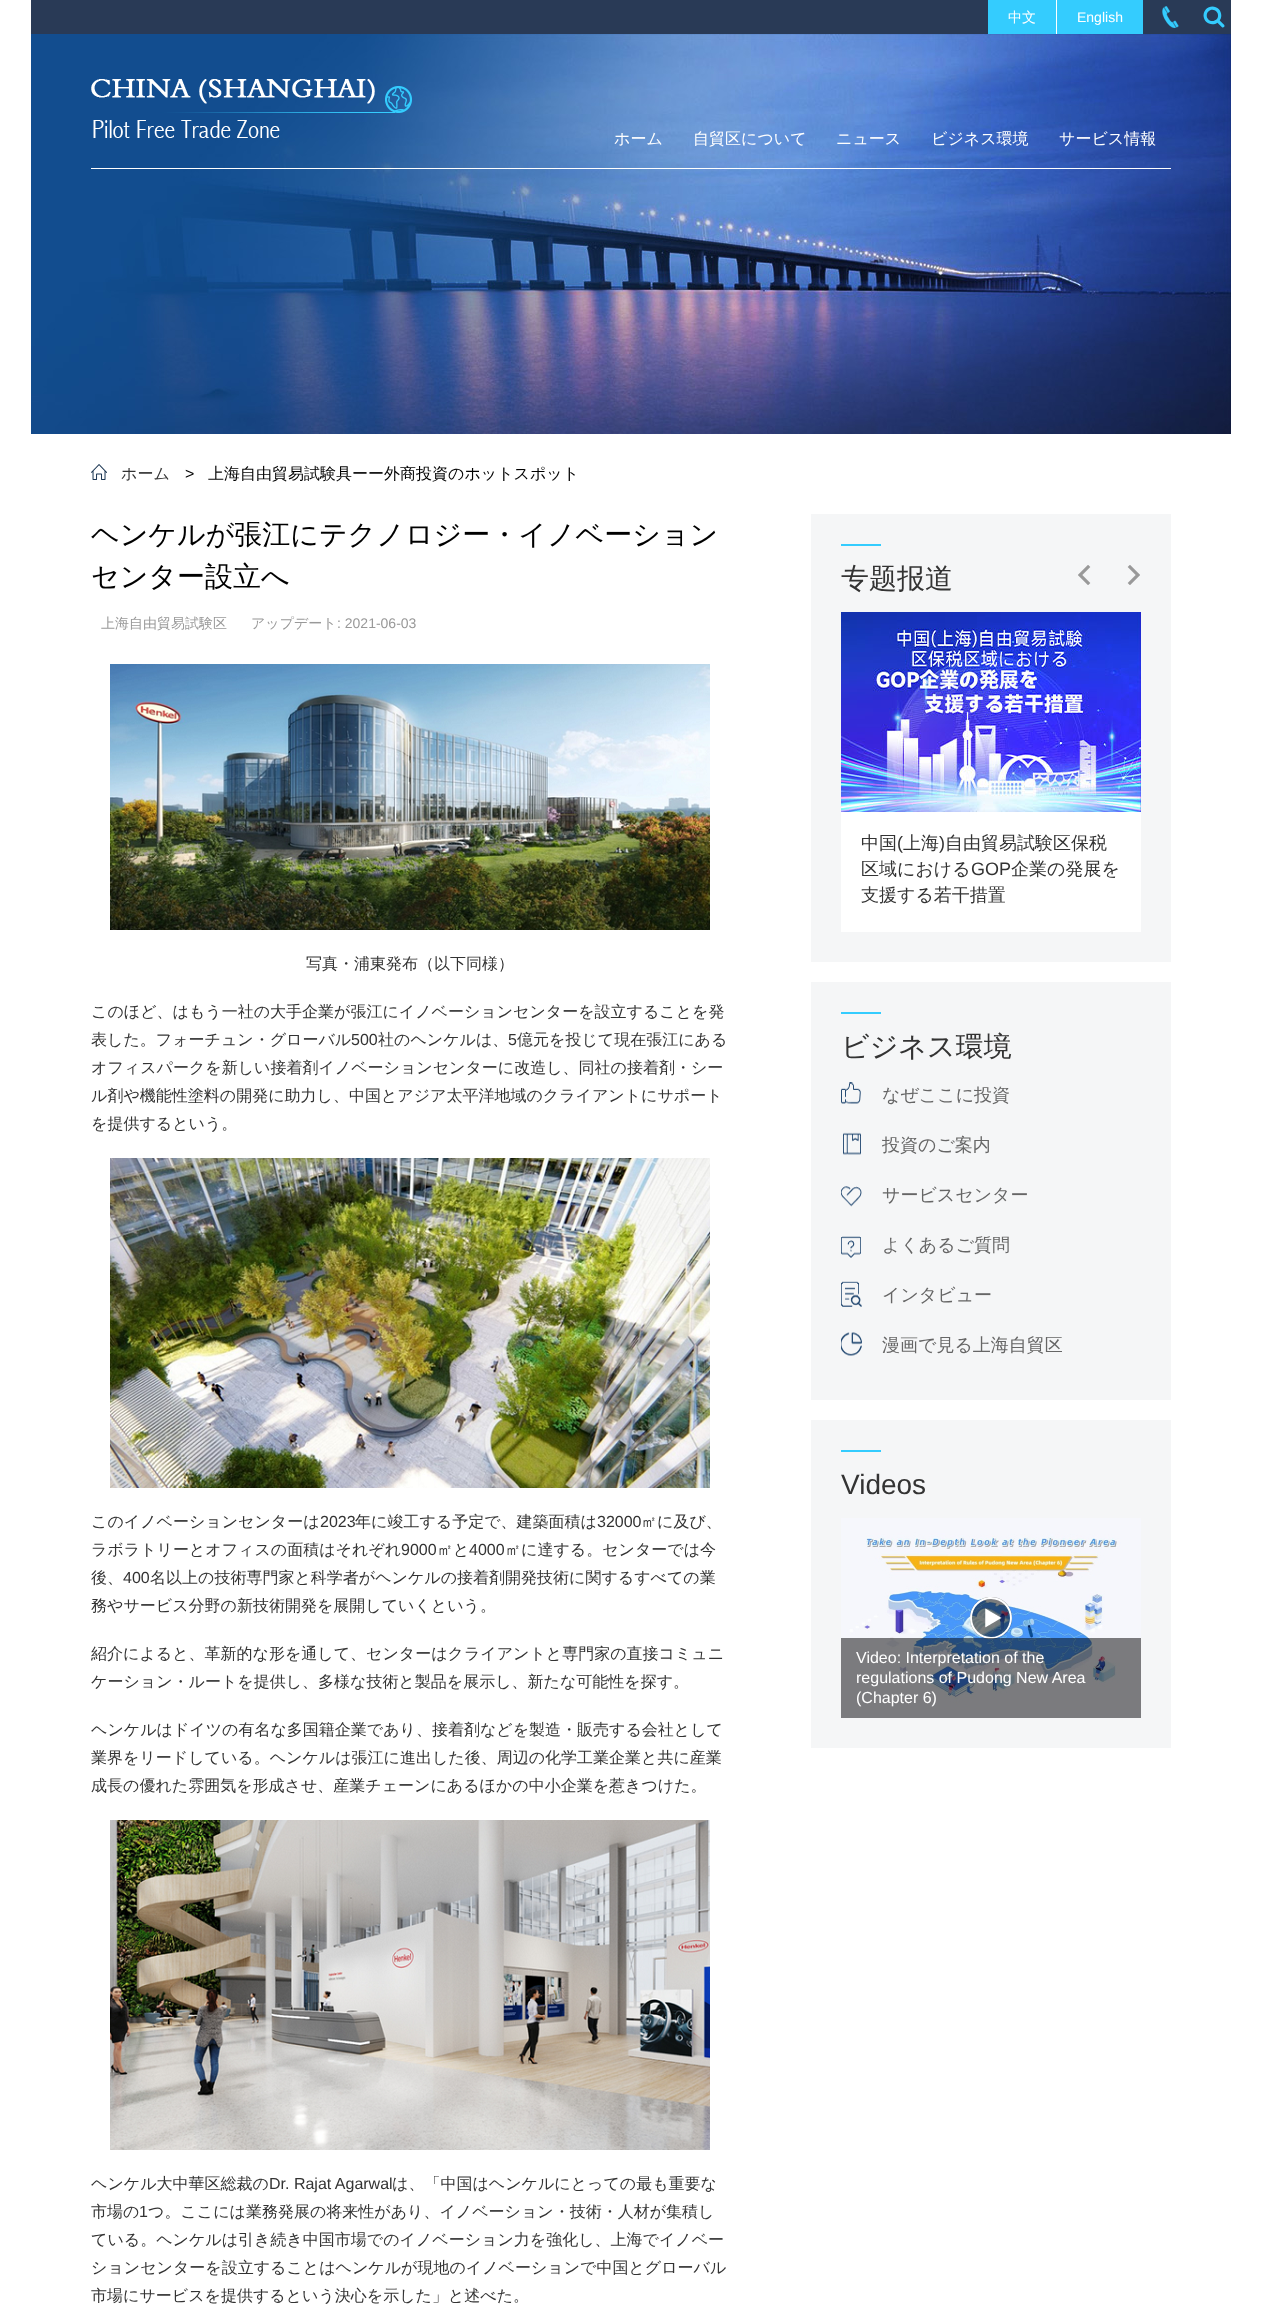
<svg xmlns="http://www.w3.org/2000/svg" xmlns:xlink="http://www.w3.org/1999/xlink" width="1262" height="2304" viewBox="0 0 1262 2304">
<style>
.cls-1{font:500 14px WenQuanYi Zen Hei;fill:#ffffff}
.cls-2{font:14px Liberation Sans;fill:#ffffff}
.cls-3{font:500 16px WenQuanYi Zen Hei;fill:#ffffff}
.cls-4{font:500 16px WenQuanYi Zen Hei;fill:#333333}
.cls-5{font:16px Liberation Sans;fill:#000000}
.cls-6{font:500 16px WenQuanYi Zen Hei;fill:#000000}
.cls-7{font:500 28px WenQuanYi Zen Hei;fill:#000000}
.cls-8{font:500 14px WenQuanYi Zen Hei;fill:#999999}
.cls-9{font:14px Liberation Sans;fill:#999999}
.cls-10{font:16px Liberation Sans;fill:#333333}
.cls-11{font:500 28px WenQuanYi Zen Hei;fill:#333333}
.cls-12{font:500 18px WenQuanYi Zen Hei;fill:#333333}
.cls-13{font:18px Liberation Sans;fill:#333333}
.cls-14{font:500 18px WenQuanYi Zen Hei;fill:#666666}
.cls-15{font:28px Liberation Sans;fill:#333333}
.cls-16{font:16px Liberation Sans;fill:#ffffff}
</style>
<rect width="100%" height="100%" fill="#ffffff"/>
<rect fill="#293a56" x="31" y="0" width="1200" height="34"/>
<rect fill="#34ccfe" x="988" y="0" width="155" height="34"/>
<rect fill="#ffffff" x="1056" y="0" width="1" height="34"/>
<image xlink:href="image0.png" x="1162" y="6" width="17" height="22"/>
<image xlink:href="image1.png" x="1203" y="6" width="22" height="22"/>
<image xlink:href="image2.png" x="31" y="34" width="1200" height="400"/>
<rect fill="#ffffff" x="91" y="168" width="1080" height="1"/>
<image xlink:href="image3.png" x="91" y="79" width="321" height="59"/>
<image xlink:href="image4.png" x="91" y="464" width="16" height="16"/>
<image xlink:href="image5.png" x="110" y="664" width="600" height="266"/>
<image xlink:href="image6.png" x="110" y="1158" width="600" height="330"/>
<image xlink:href="image7.png" x="110" y="1820" width="600" height="330"/>
<rect fill="#f5f6f7" x="811" y="514" width="360" height="448"/>
<rect fill="#34ccfe" x="841" y="544" width="40" height="2"/>
<image xlink:href="image8.png" x="1078" y="565" width="13" height="20"/>
<image xlink:href="image9.png" x="1127" y="565" width="13" height="20"/>
<rect fill="#ffffff" x="841" y="812" width="300" height="120"/>
<image xlink:href="image10.png" x="841" y="612" width="300" height="200"/>
<rect fill="#f5f6f7" x="811" y="982" width="360" height="418"/>
<rect fill="#34ccfe" x="841" y="1012" width="40" height="2"/>
<image xlink:href="image11.png" x="841" y="1082" width="20" height="22"/>
<image xlink:href="image12.png" x="843" y="1132" width="18" height="23"/>
<image xlink:href="image13.png" x="841" y="1186" width="21" height="21"/>
<image xlink:href="image14.png" x="841" y="1236" width="20" height="22"/>
<image xlink:href="image15.png" x="841" y="1281" width="21" height="26"/>
<image xlink:href="image16.png" x="841" y="1332" width="21" height="24"/>
<rect fill="#f5f6f7" x="811" y="1420" width="360" height="328"/>
<rect fill="#34ccfe" x="841" y="1450" width="40" height="2"/>
<image xlink:href="image17.png" x="841" y="1518" width="300" height="200"/>
<image xlink:href="image18.png" x="970" y="1597" width="42" height="42"/>
<rect fill="#000000" fill-opacity="0.5" x="841" y="1638" width="300" height="80"/>
<text class="cls-1" x="1008" y="22">中文</text>
<text class="cls-2" x="1077" y="22">English</text>
<text class="cls-3" x="614" y="144">ホーム</text>
<text class="cls-3" x="693" y="144">自貿区について</text>
<text class="cls-3" x="836" y="144">ニュース</text>
<text class="cls-3" x="931" y="144">ビジネス環境</text>
<text class="cls-3" x="1059" y="144">サービス情報</text>
<text class="cls-4" x="121" y="479">ホーム</text>
<text class="cls-5" x="185" y="479">&gt;</text>
<text class="cls-6" x="208" y="479">上海自由貿易試験具ーー外商投資のホットスポット</text>
<text class="cls-7"><tspan x="91" y="544">ヘンケルが張江にテクノロジー・イノベーション</tspan><tspan x="91" y="586">センター設立へ</tspan></text>
<text class="cls-8" x="101" y="628">上海自由貿易試験区</text>
<text class="cls-8" x="251" y="628">アップデート</text>
<text class="cls-9" x="337" y="628">: 2021-06-03</text>
<text class="cls-4" x="306" y="969">写真・浦東発布（以下同様）</text>
<text class="cls-4"><tspan x="91" y="1017">このほど、はもう一社の大手企業が張江にイノベーションセンターを設立することを発</tspan><tspan x="91" y="1045">表した。フォーチュン・グローバル</tspan></text>
<text class="cls-10" x="351" y="1045">500</text>
<text class="cls-4" x="378" y="1045">社のヘンケルは、</text>
<text class="cls-10" x="508" y="1045">5</text>
<text class="cls-4" x="517" y="1045">億元を投じて現在張江にある</text>
<text class="cls-4"><tspan x="91" y="1073">オフィスパークを新しい接着剤イノベーションセンターに改造し、同社の接着剤・シー</tspan><tspan x="91" y="1101">ル剤や機能性塗料の開発に助力し、中国とアジア太平洋地域のクライアントにサポート</tspan><tspan x="91" y="1129">を提供するという。</tspan></text>
<text class="cls-4" x="91" y="1527">このイノベーションセンターは</text>
<text class="cls-10" x="320" y="1527">2023</text>
<text class="cls-4" x="355" y="1527">年に竣工する予定で、建築面積は</text>
<text class="cls-10" x="597" y="1527">32000</text>
<text class="cls-4" x="641" y="1527">㎡に及び、</text>
<text class="cls-4" x="91" y="1555">ラボラトリーとオフィスの面積はそれぞれ</text>
<text class="cls-10" x="401" y="1555">9000</text>
<text class="cls-4" x="437" y="1555">㎡と</text>
<text class="cls-10" x="469" y="1555">4000</text>
<text class="cls-4" x="505" y="1555">㎡に達する。センターでは今</text>
<text class="cls-4" x="91" y="1583">後、</text>
<text class="cls-10" x="123" y="1583">400</text>
<text class="cls-4" x="150" y="1583">名以上の技術専門家と科学者がヘンケルの接着剤開発技術に関するすべての業</text>
<text class="cls-4" x="91" y="1611">務やサービス分野の新技術開発を展開していくという。</text>
<text class="cls-4"><tspan x="91" y="1659">紹介によると、革新的な形を通して、センターはクライアントと専門家の直接コミュニ</tspan><tspan x="91" y="1687">ケーション・ルートを提供し、多様な技術と製品を展示し、新たな可能性を探す。</tspan></text>
<text class="cls-4"><tspan x="91" y="1735">ヘンケルはドイツの有名な多国籍企業であり、接着剤などを製造・販売する会社として</tspan><tspan x="91" y="1763">業界をリードしている。ヘンケルは張江に進出した後、周辺の化学工業企業と共に産業</tspan><tspan x="91" y="1791">成長の優れた雰囲気を形成させ、産業チェーンにあるほかの中小企業を惹きつけた。</tspan></text>
<text class="cls-4" x="91" y="2189">ヘンケル大中華区総裁の</text>
<text class="cls-10" x="269" y="2189">Dr. Rajat Agarwal</text>
<text class="cls-4" x="392" y="2189">は、「中国はヘンケルにとっての最も重要な</text>
<text class="cls-4" x="91" y="2217">市場の</text>
<text class="cls-10" x="139" y="2217">1</text>
<text class="cls-4" x="148" y="2217">つ。ここには業務発展の将来性があり、イノベーション・技術・人材が集積し</text>
<text class="cls-4"><tspan x="91" y="2245">ている。ヘンケルは引き続き中国市場でのイノベーション力を強化し、上海でイノベー</tspan><tspan x="91" y="2273">ションセンターを設立することはヘンケルが現地のイノベーションで中国とグローバル</tspan><tspan x="91" y="2301">市場にサービスを提供するという決心を示した」と述べた。</tspan></text>
<text class="cls-11" x="841" y="588">专题报道</text>
<text class="cls-12" x="861" y="849">中国</text>
<text class="cls-13" x="897" y="849">(</text>
<text class="cls-12" x="903" y="849">上海</text>
<text class="cls-13" x="939" y="849">)</text>
<text class="cls-12" x="945" y="849">自由貿易試験区保税</text>
<text class="cls-12" x="861" y="875">区域における</text>
<text class="cls-13" x="971" y="875">GOP</text>
<text class="cls-12" x="1011" y="875">企業の発展を</text>
<text class="cls-12" x="861" y="901">支援する若干措置</text>
<text class="cls-11" x="841" y="1056">ビジネス環境</text>
<text class="cls-14" x="882" y="1101">なぜここに投資</text>
<text class="cls-14" x="882" y="1151">投資のご案内</text>
<text class="cls-14" x="882" y="1201">サービスセンター</text>
<text class="cls-14" x="882" y="1251">よくあるご質問</text>
<text class="cls-14" x="882" y="1301">インタビュー</text>
<text class="cls-14" x="882" y="1351">漫画で見る上海自貿区</text>
<text class="cls-15" x="841" y="1494">Videos</text>
<text class="cls-16"><tspan x="856" y="1663">Video: Interpretation of the</tspan><tspan x="856" y="1683">regulations of Pudong New Area</tspan><tspan x="856" y="1703">(Chapter 6)</tspan></text>
</svg>
